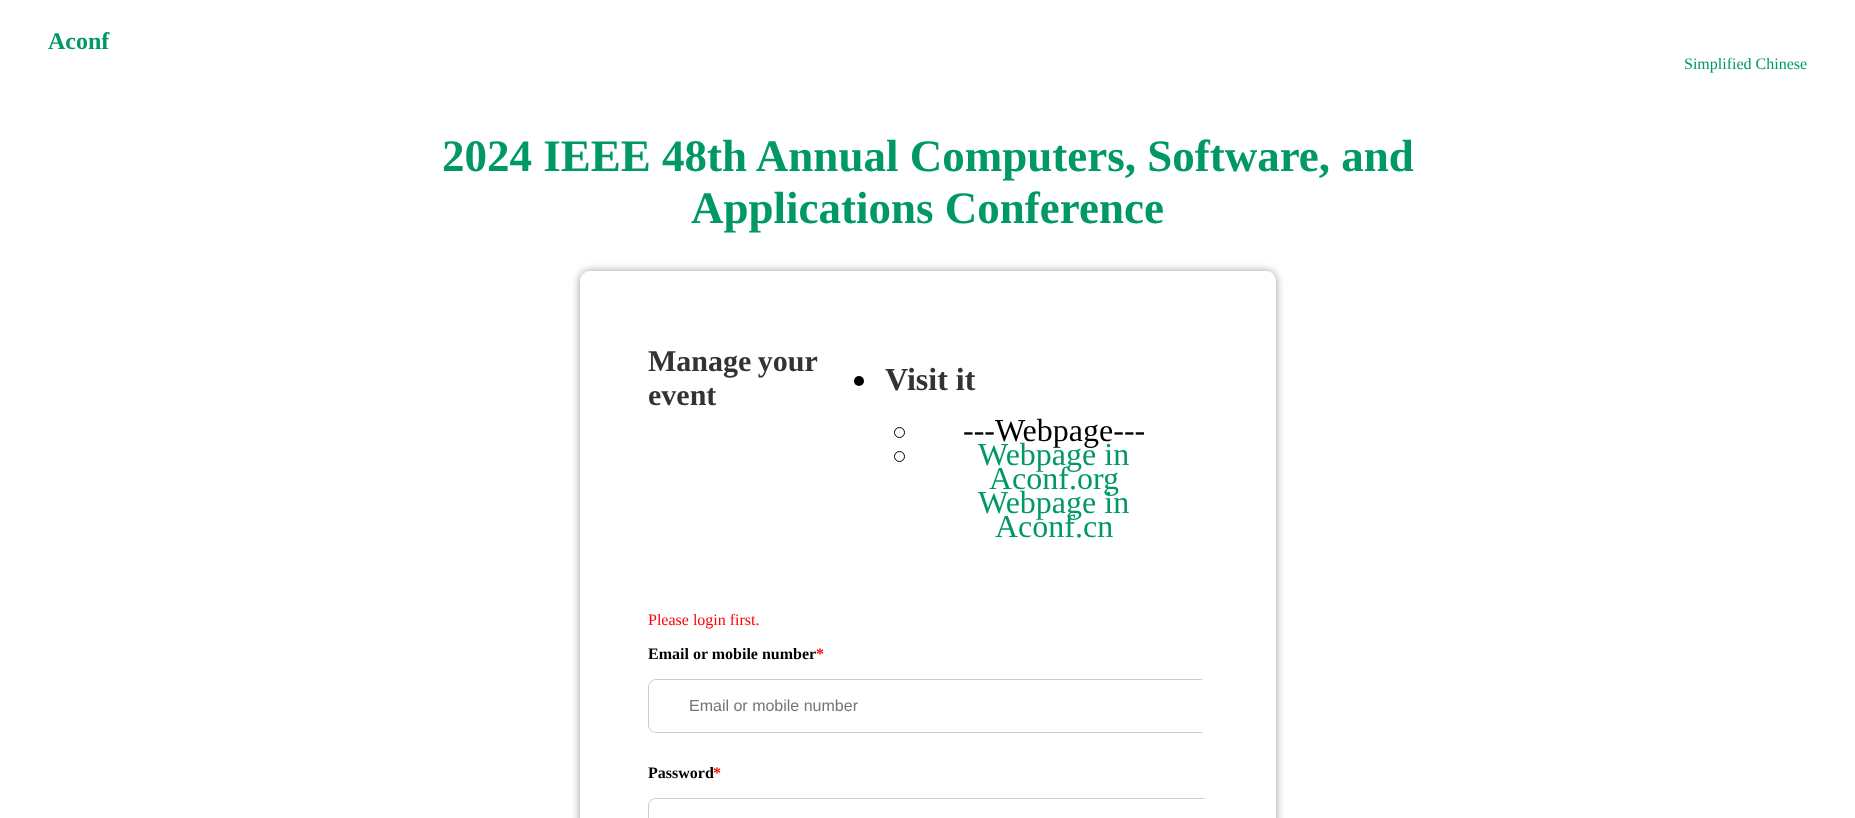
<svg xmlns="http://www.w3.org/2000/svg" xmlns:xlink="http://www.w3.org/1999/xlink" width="1855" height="818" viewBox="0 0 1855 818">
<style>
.cls-1{font:bold 24px Liberation Serif;fill:#009966}
.cls-2{font:16px Liberation Serif;fill:#009966}
.cls-3{font:bold 45px Liberation Serif;fill:#009966}
.cls-4{font:bold 30px Liberation Serif;fill:#333333}
.cls-5{font:bold 32px Liberation Serif;fill:#333333}
.cls-6{font:32px Liberation Serif;fill:#000000}
.cls-7{font:32px Liberation Serif;fill:#009966}
.cls-8{font:16px Liberation Serif;fill:#ff0000}
.cls-9{font:bold 16px Liberation Serif;fill:#000000}
.cls-10{font:bold 16px Liberation Serif;fill:#ff0000}
.cls-11{font:16px Liberation Sans;fill:#757575}
</style>
<defs>
<clipPath id="clip1"><path d="M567 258H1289V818H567ZM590 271H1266C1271.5 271 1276 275.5 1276 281V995C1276 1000.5 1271.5 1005 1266 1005H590C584.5 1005 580 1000.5 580 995V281C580 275.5 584.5 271 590 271Z" clip-rule="evenodd"/></clipPath>
</defs>
<rect width="100%" height="100%" fill="#ffffff"/>
<g clip-path="url(#clip1)">
<rect fill="#999999" filter="blur(4px)" x="580" y="271" width="696" height="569" rx="10"/>
</g>
<rect fill="#ffffff" fill-opacity="0.45" x="580" y="271" width="696" height="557" rx="10"/>
<circle fill="#000000" cx="859" cy="381" r="5"/>
<circle fill="none" stroke="#000000" cx="899.5" cy="432.5" r="5"/>
<circle fill="none" stroke="#000000" cx="899.5" cy="456.5" r="5"/>
<rect fill="none" stroke="#cccccc" x="648.5" y="679.5" width="559" height="53" rx="7.5"/>
<rect fill="#ffffff" x="649" y="680" width="600" height="52" rx="8"/>
<rect fill="none" stroke="#cccccc" x="648.5" y="798.5" width="561" height="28" rx="7.5"/>
<rect fill="#ffffff" x="649" y="799" width="602" height="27" rx="8"/>
<text class="cls-1" x="48" y="49">Aconf</text>
<text class="cls-2" x="1684" y="69">Simplified Chinese</text>
<text class="cls-3" x="442" y="171">2024 IEEE 48th Annual Computers, Software, and</text>
<text class="cls-3" x="691" y="223">Applications Conference</text>
<text class="cls-4"><tspan x="648" y="371" word-spacing="-1">Manage your</tspan><tspan x="648" y="405">event</tspan></text>
<text class="cls-5" x="885" y="390">Visit it</text>
<text class="cls-6" x="963" y="441">---Webpage---</text>
<text class="cls-7" x="978" y="465">Webpage in</text>
<text class="cls-7" x="989" y="489">Aconf.org</text>
<text class="cls-7" x="978" y="513">Webpage in</text>
<text class="cls-7" x="995" y="537">Aconf.cn</text>
<text class="cls-8" x="648" y="625">Please login first.</text>
<text class="cls-9" x="648" y="659">Email or mobile number</text>
<text class="cls-10" x="816" y="659">*</text>
<text class="cls-11" x="689" y="711">Email or mobile number</text>
<text class="cls-9" x="648" y="778">Password</text>
<text class="cls-10" x="713" y="778">*</text>
</svg>
